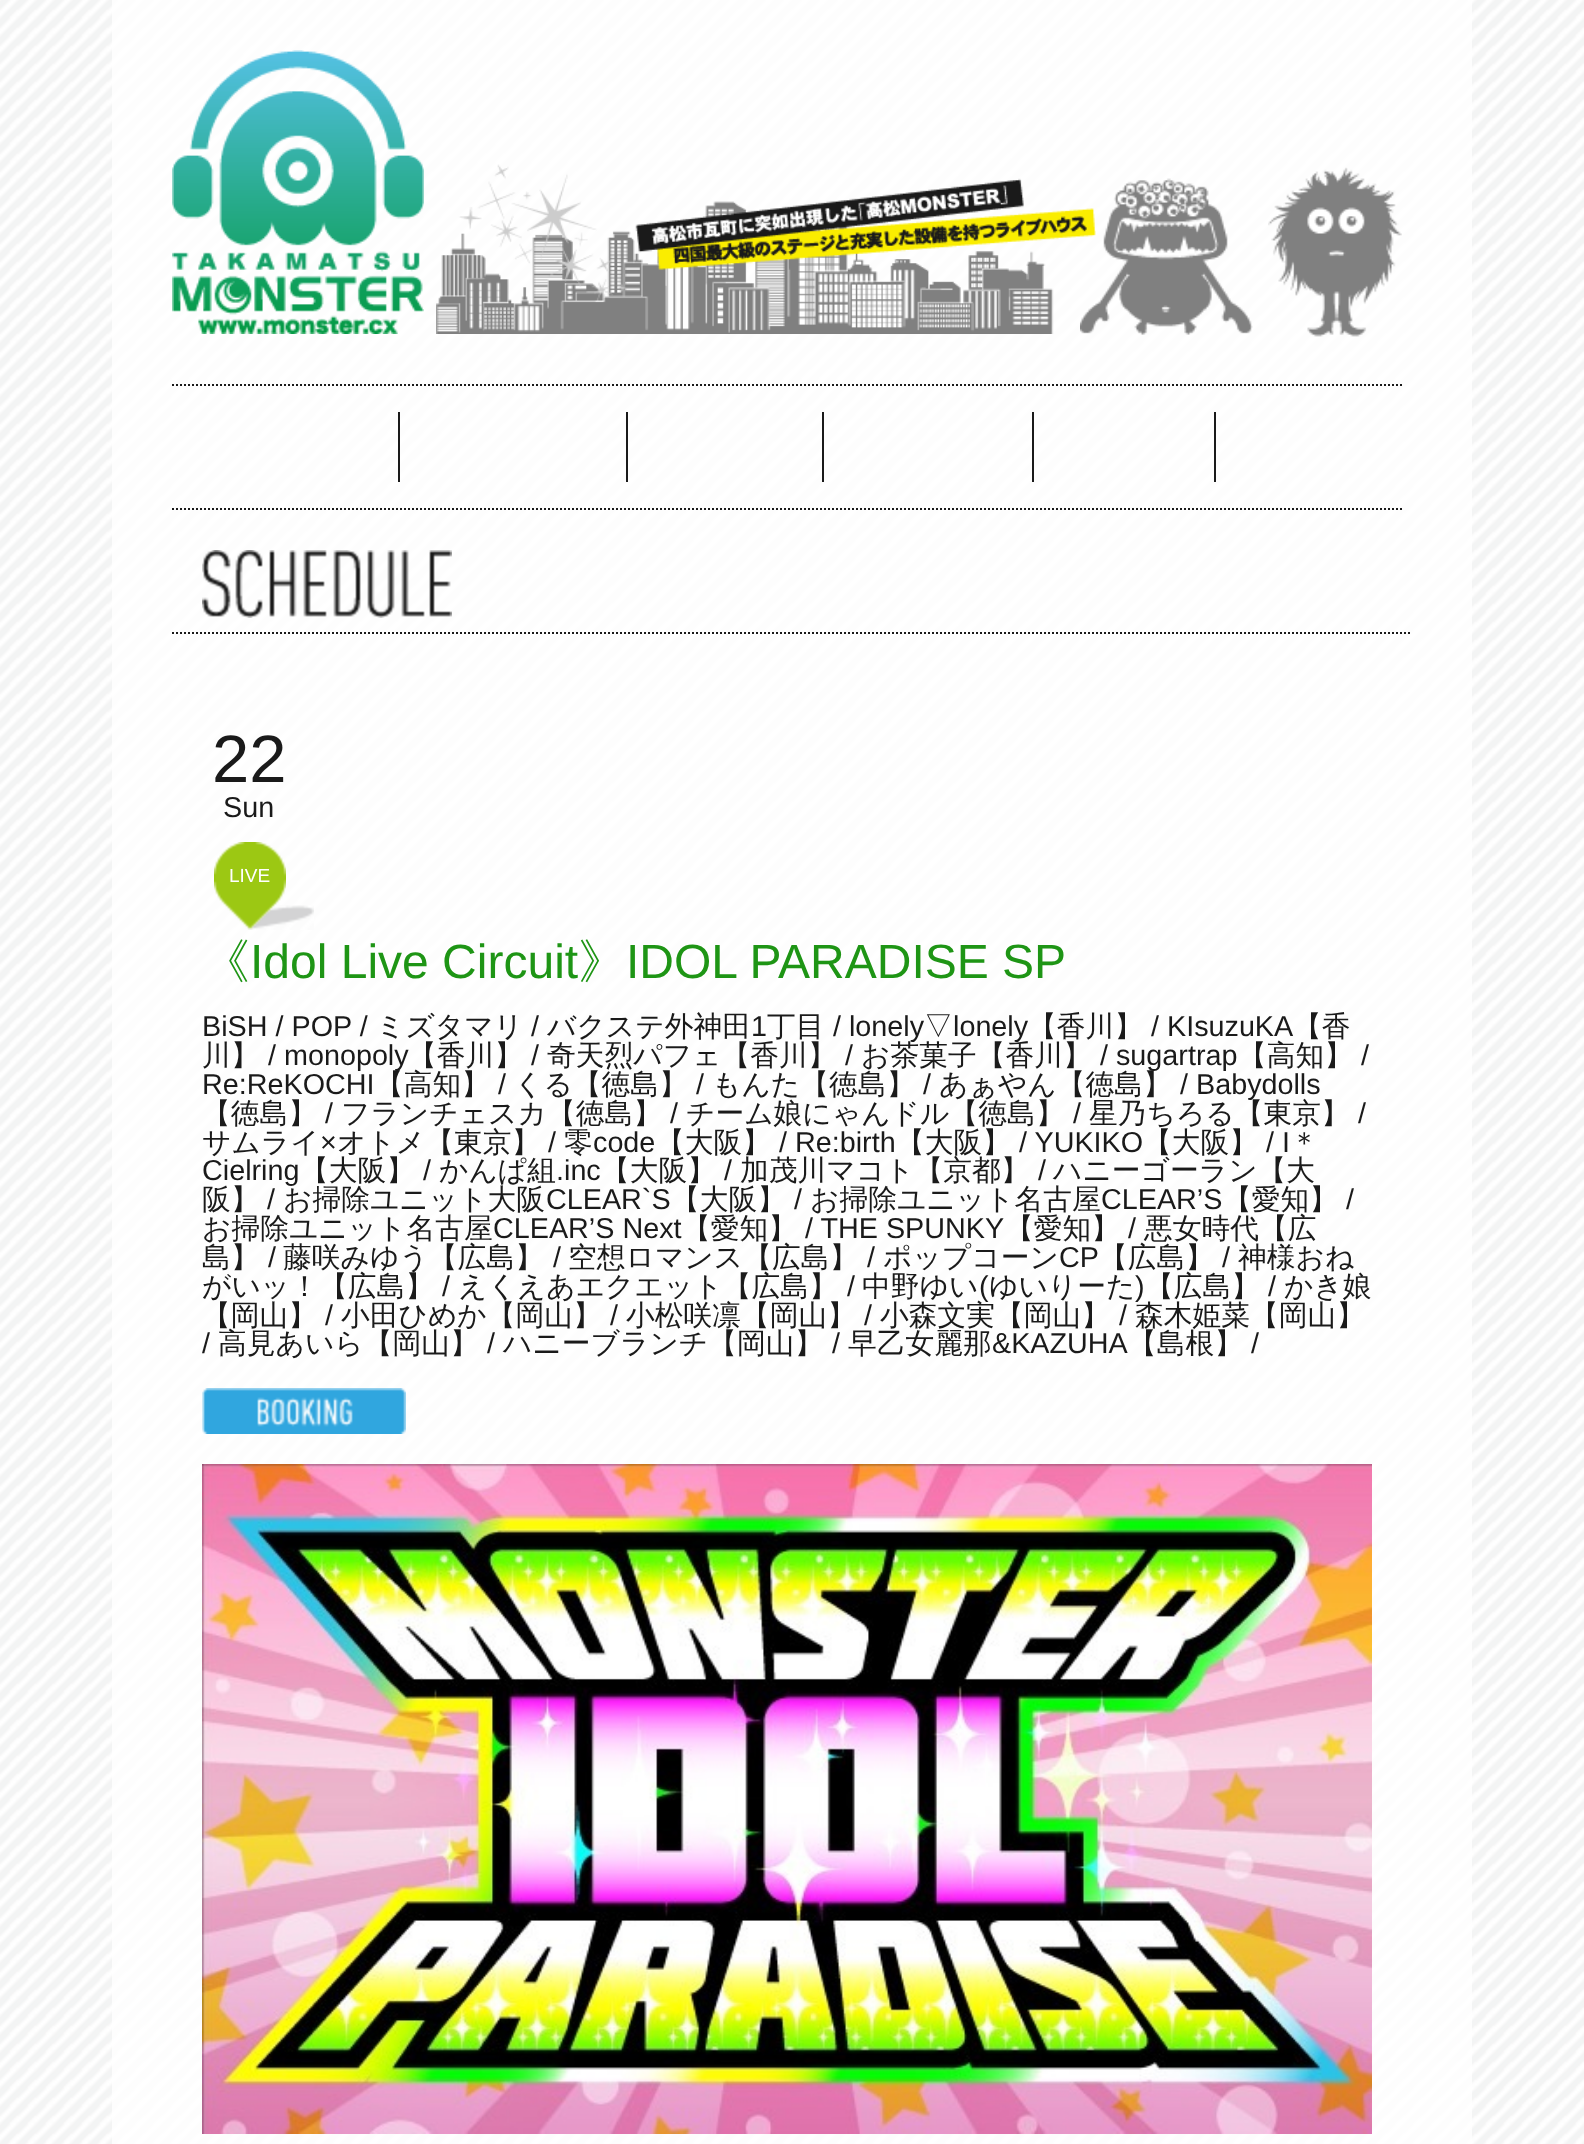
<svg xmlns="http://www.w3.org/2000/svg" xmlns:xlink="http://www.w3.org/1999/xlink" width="1584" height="2144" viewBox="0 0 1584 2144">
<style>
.cls-1{font:67px Liberation Sans;fill:#1a1a1a}
.cls-2{font:28.75px Liberation Sans;fill:#1a1a1a}
.cls-3{font:19px Liberation Sans;fill:#ffffff}
.cls-4{font:500 48px WenQuanYi Zen Hei;fill:#1e9515}
.cls-5{font:48px Liberation Sans;fill:#1e9515}
.cls-6{font:500 28.75px WenQuanYi Zen Hei;fill:#1a1a1a}
</style>
<rect width="100%" height="100%" fill="#ffffff"/>
<image xlink:href="image0.png" x="0" y="0" width="1584" height="2144"/>
<rect fill="#ffffff" fill-opacity="0.8" x="112" y="0" width="1360" height="2144"/>
<image xlink:href="image1.png" x="172" y="50" width="252" height="284"/>
<image xlink:href="image2.png" x="436" y="164" width="660" height="170"/>
<image xlink:href="image3.png" x="1080" y="178" width="173" height="157"/>
<image xlink:href="image4.png" x="1268" y="167" width="134" height="170"/>
<path fill="none" stroke="#1a1a1a" stroke-width="2" stroke-dasharray="2 2" d="M172 385H1404"/>
<path fill="none" stroke="#1a1a1a" stroke-width="2" stroke-dasharray="2 2" d="M172 509H1404"/>
<rect fill="#1a1a1a" x="398" y="412" width="2" height="70"/>
<rect fill="#1a1a1a" x="626" y="412" width="2" height="70"/>
<rect fill="#1a1a1a" x="822" y="412" width="2" height="70"/>
<rect fill="#1a1a1a" x="1032" y="412" width="2" height="70"/>
<rect fill="#1a1a1a" x="1214" y="412" width="2" height="70"/>
<path fill="none" stroke="#1a1a1a" stroke-width="2" stroke-dasharray="2 2" d="M172 633H1412"/>
<image xlink:href="image5.png" x="202" y="550" width="250" height="68"/>
<image xlink:href="image6.png" x="248" y="905" width="66" height="25"/>
<image xlink:href="image7.png" x="214" y="842" width="72" height="88"/>
<image xlink:href="image8.png" x="202" y="1388" width="204" height="46"/>
<image xlink:href="image9.png" x="202" y="1464" width="1170" height="670"/>
<text class="cls-1" x="212" y="782">22</text>
<text class="cls-2" x="223" y="817">Sun</text>
<text class="cls-3" x="229" y="882">LIVE</text>
<text class="cls-4" x="202" y="978">《</text>
<text class="cls-5" x="250" y="978">Idol Live Circuit</text>
<text class="cls-4" x="578" y="978">》</text>
<text class="cls-5" x="626" y="978">IDOL PARADISE SP</text>
<text class="cls-2" x="202" y="1036">BiSH / POP /</text>
<text class="cls-6" x="376" y="1036">ミズタマリ</text>
<text class="cls-2" x="531" y="1036">/</text>
<text class="cls-6" x="547" y="1036">バクステ外神田</text>
<text class="cls-2" x="751" y="1036">1</text>
<text class="cls-6" x="767" y="1036">丁目</text>
<text class="cls-2" x="833" y="1036">/ lonely</text>
<text class="cls-6" x="924" y="1036">▽</text>
<text class="cls-2" x="953" y="1036">lonely</text>
<text class="cls-6" x="1028" y="1036">【香川】</text>
<text class="cls-2" x="1151" y="1036">/ KIsuzuKA</text>
<text class="cls-6" x="1293" y="1036">【香</text>
<text class="cls-6" x="202" y="1065">川】</text>
<text class="cls-2" x="268" y="1065">/ monopoly</text>
<text class="cls-6" x="408" y="1065">【香川】</text>
<text class="cls-2" x="531" y="1065">/</text>
<text class="cls-6" x="547" y="1065">奇天烈パフェ【香川】</text>
<text class="cls-2" x="845" y="1065">/</text>
<text class="cls-6" x="861" y="1065">お茶菓子【香川】</text>
<text class="cls-2" x="1100" y="1065">/ sugartrap</text>
<text class="cls-6" x="1238" y="1065">【高知】</text>
<text class="cls-2" x="1361" y="1065">/</text>
<text class="cls-2" x="202" y="1094">Re:ReKOCHI</text>
<text class="cls-6" x="375" y="1094">【高知】</text>
<text class="cls-2" x="498" y="1094">/</text>
<text class="cls-6" x="514" y="1094">くる【徳島】</text>
<text class="cls-2" x="696" y="1094">/</text>
<text class="cls-6" x="712" y="1094">もんた【徳島】</text>
<text class="cls-2" x="923" y="1094">/</text>
<text class="cls-6" x="939" y="1094">あぁやん【徳島】</text>
<text class="cls-2" x="1180" y="1094">/ Babydolls</text>
<text class="cls-6" x="202" y="1123">【徳島】</text>
<text class="cls-2" x="325" y="1123">/</text>
<text class="cls-6" x="341" y="1123">フランチェスカ【徳島】</text>
<text class="cls-2" x="670" y="1123">/</text>
<text class="cls-6" x="686" y="1123">チーム娘にゃんドル【徳島】</text>
<text class="cls-2" x="1073" y="1123">/</text>
<text class="cls-6" x="1089" y="1123">星乃ちろる【東京】</text>
<text class="cls-2" x="1358" y="1123">/</text>
<text class="cls-6" x="202" y="1152">サムライ</text>
<text class="cls-2" x="320" y="1152">×</text>
<text class="cls-6" x="337" y="1152">オトメ【東京】</text>
<text class="cls-2" x="548" y="1152">/</text>
<text class="cls-6" x="564" y="1152">零</text>
<text class="cls-2" x="593" y="1152">code</text>
<text class="cls-6" x="656" y="1152">【大阪】</text>
<text class="cls-2" x="779" y="1152">/ Re:birth</text>
<text class="cls-6" x="896" y="1152">【大阪】</text>
<text class="cls-2" x="1019" y="1152">/ YUKIKO</text>
<text class="cls-6" x="1143" y="1152">【大阪】</text>
<text class="cls-2" x="1266" y="1152">/ I</text>
<text class="cls-6" x="1290" y="1152">＊</text>
<text class="cls-2" x="202" y="1180">Cielring</text>
<text class="cls-6" x="300" y="1180">【大阪】</text>
<text class="cls-2" x="423" y="1180">/</text>
<text class="cls-6" x="439" y="1180">かんぱ組</text>
<text class="cls-2" x="556" y="1180">.inc</text>
<text class="cls-6" x="601" y="1180">【大阪】</text>
<text class="cls-2" x="724" y="1180">/</text>
<text class="cls-6" x="740" y="1180">加茂川マコト【京都】</text>
<text class="cls-2" x="1038" y="1180">/</text>
<text class="cls-6" x="1053" y="1180">ハニーゴーラン【大</text>
<text class="cls-6" x="202" y="1209">阪】</text>
<text class="cls-2" x="267" y="1209">/</text>
<text class="cls-6" x="283" y="1209">お掃除ユニット大阪</text>
<text class="cls-2" x="546" y="1209">CLEAR`S</text>
<text class="cls-6" x="671" y="1209">【大阪】</text>
<text class="cls-2" x="794" y="1209">/</text>
<text class="cls-6" x="810" y="1209">お掃除ユニット名古屋</text>
<text class="cls-2" x="1101" y="1209">CLEAR’S</text>
<text class="cls-6" x="1223" y="1209">【愛知】</text>
<text class="cls-2" x="1346" y="1209">/</text>
<text class="cls-6" x="202" y="1238">お掃除ユニット名古屋</text>
<text class="cls-2" x="493" y="1238">CLEAR’S Next</text>
<text class="cls-6" x="682" y="1238">【愛知】</text>
<text class="cls-2" x="805" y="1238">/ THE SPUNKY</text>
<text class="cls-6" x="1005" y="1238">【愛知】</text>
<text class="cls-2" x="1128" y="1238">/</text>
<text class="cls-6" x="1144" y="1238">悪女時代【広</text>
<text class="cls-6" x="202" y="1267">島】</text>
<text class="cls-2" x="268" y="1267">/</text>
<text class="cls-6" x="283" y="1267">藤咲みゆう【広島】</text>
<text class="cls-2" x="553" y="1267">/</text>
<text class="cls-6" x="568" y="1267">空想ロマンス【広島】</text>
<text class="cls-2" x="867" y="1267">/</text>
<text class="cls-6" x="883" y="1267">ポップコーン</text>
<text class="cls-2" x="1059" y="1267">CP</text>
<text class="cls-6" x="1099" y="1267">【広島】</text>
<text class="cls-2" x="1222" y="1267">/</text>
<text class="cls-6" x="1238" y="1267">神様おね</text>
<text class="cls-6" x="202" y="1296">がいッ！【広島】</text>
<text class="cls-2" x="442" y="1296">/</text>
<text class="cls-6" x="458" y="1296">えくえあエクエット【広島】</text>
<text class="cls-2" x="847" y="1296">/</text>
<text class="cls-6" x="862" y="1296">中野ゆい</text>
<text class="cls-2" x="979" y="1296">(</text>
<text class="cls-6" x="989" y="1296">ゆいりーた</text>
<text class="cls-2" x="1135" y="1296">)</text>
<text class="cls-6" x="1145" y="1296">【広島】</text>
<text class="cls-2" x="1268" y="1296">/</text>
<text class="cls-6" x="1284" y="1296">かき娘</text>
<text class="cls-6" x="202" y="1325">【岡山】</text>
<text class="cls-2" x="325" y="1325">/</text>
<text class="cls-6" x="341" y="1325">小田ひめか【岡山】</text>
<text class="cls-2" x="610" y="1325">/</text>
<text class="cls-6" x="626" y="1325">小松咲凛【岡山】</text>
<text class="cls-2" x="864" y="1325">/</text>
<text class="cls-6" x="880" y="1325">小森文実【岡山】</text>
<text class="cls-2" x="1119" y="1325">/</text>
<text class="cls-6" x="1135" y="1325">森木姫菜【岡山】</text>
<text class="cls-2" x="202" y="1353">/</text>
<text class="cls-6" x="218" y="1353">高見あいら【岡山】</text>
<text class="cls-2" x="487" y="1353">/</text>
<text class="cls-6" x="503" y="1353">ハニーブランチ【岡山】</text>
<text class="cls-2" x="832" y="1353">/</text>
<text class="cls-6" x="848" y="1353">早乙女麗那</text>
<text class="cls-2" x="992" y="1353">&amp;KAZUHA</text>
<text class="cls-6" x="1128" y="1353">【島根】</text>
<text class="cls-2" x="1251" y="1353">/</text>
</svg>
